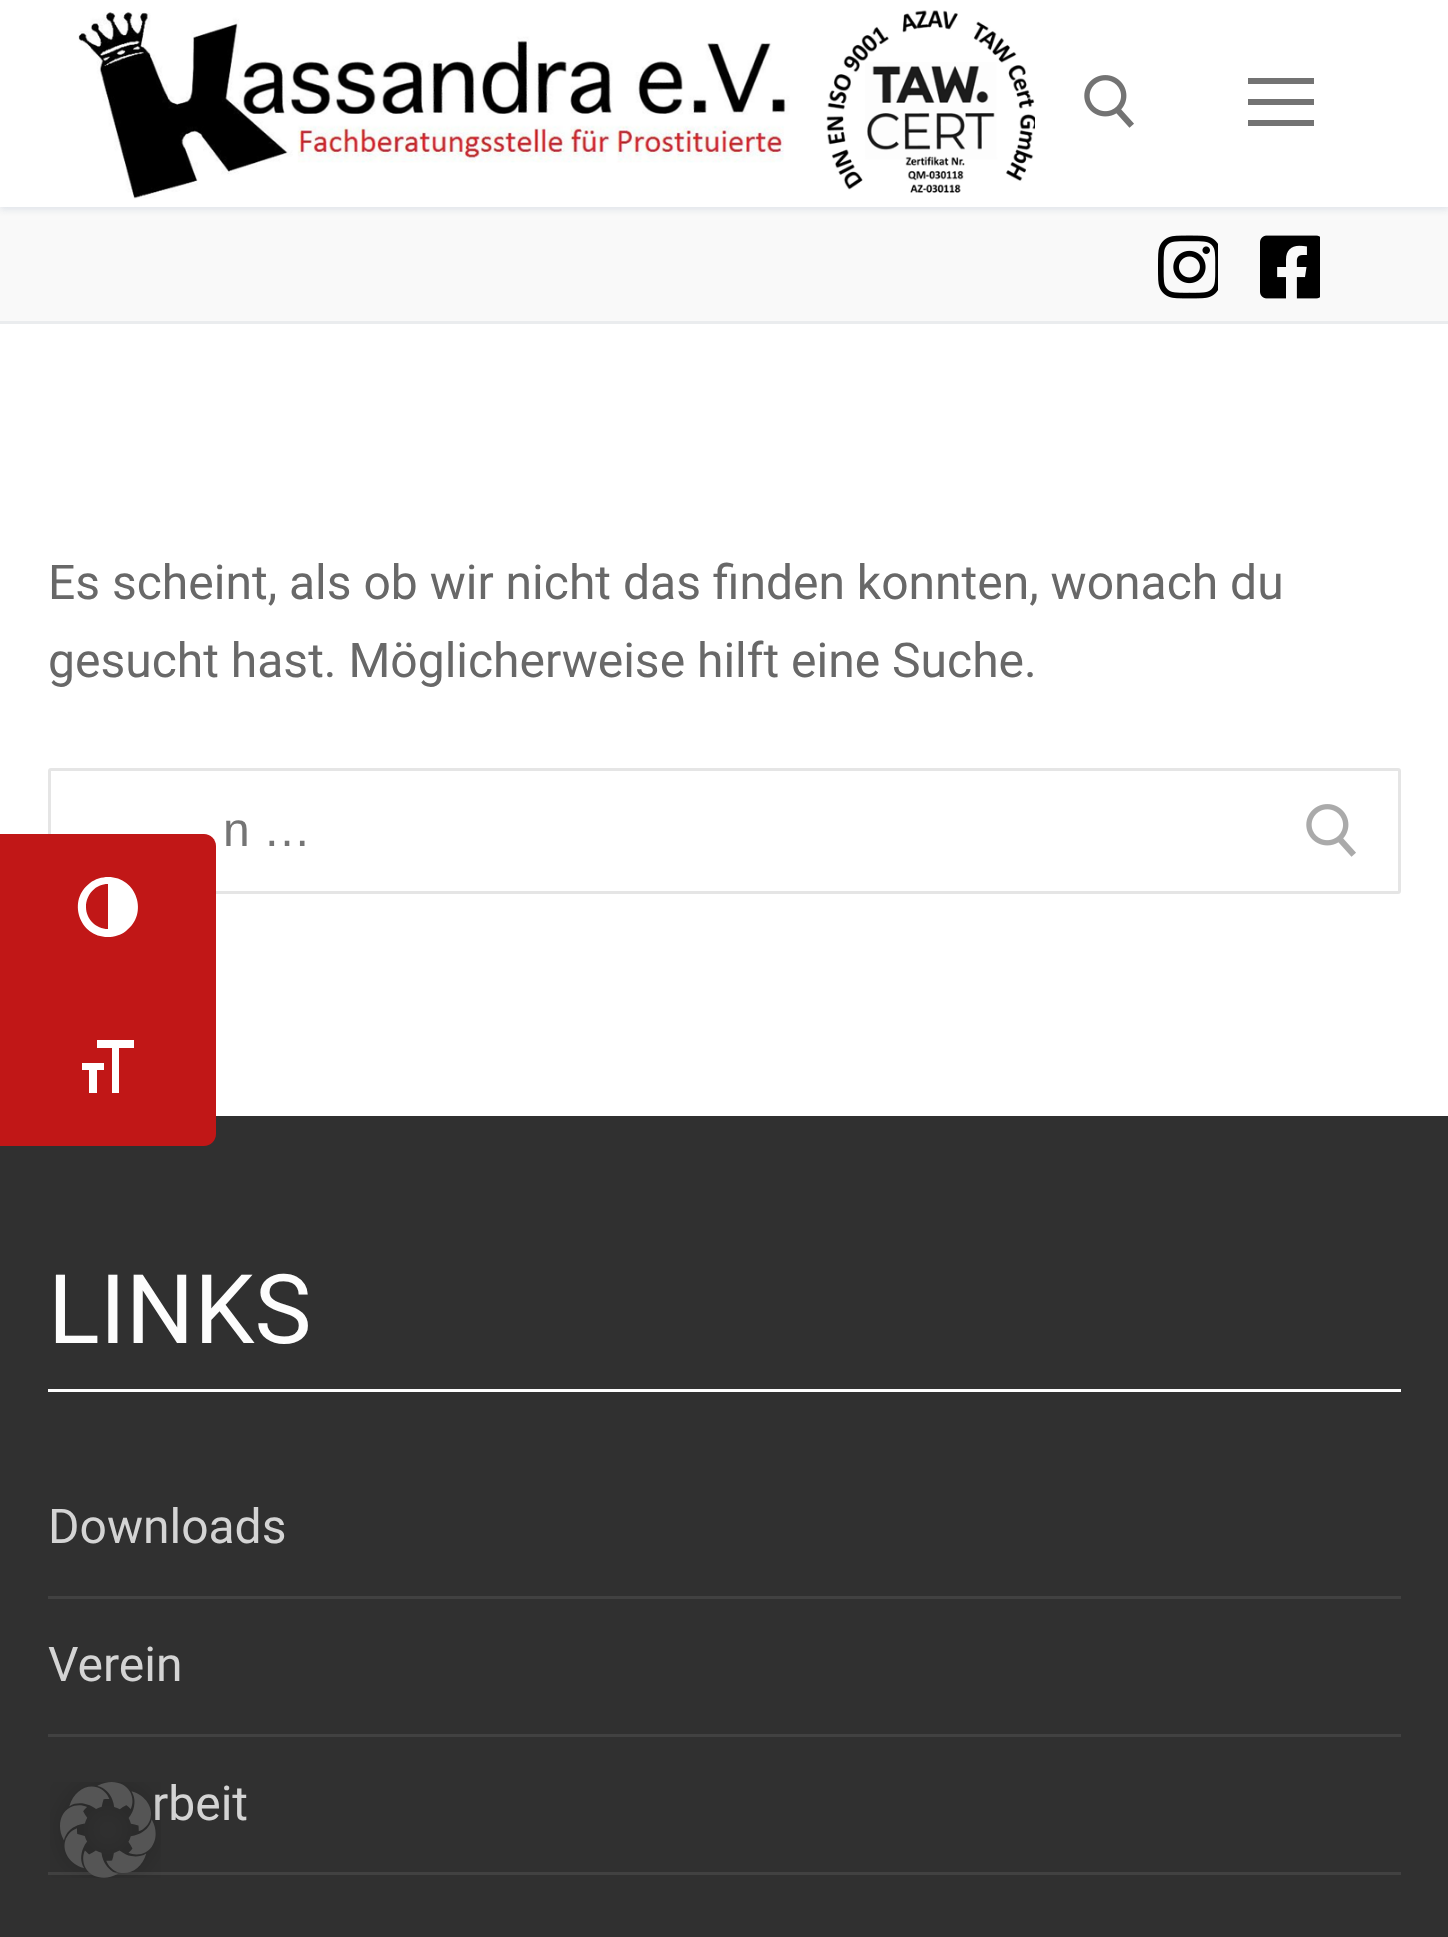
<svg xmlns="http://www.w3.org/2000/svg" xmlns:xlink="http://www.w3.org/1999/xlink" width="1448" height="1937" viewBox="0 0 1448 1937">
<style>
.cls-1{font:48px Roboto;fill:#686868}
.cls-2{font:48px Liberation Sans;fill:#757575}
.cls-3{font:96px Roboto;fill:#fdfdfd}
.cls-4{font:48px Roboto;fill:#d4d4d4}
</style>
<defs>
<clipPath id="clip1"><rect x="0" y="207" width="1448" height="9"/></clipPath>
</defs>
<rect width="100%" height="100%" fill="#ffffff"/>
<rect fill="#f9f9f9" x="0" y="207" width="1448" height="114"/>
<g clip-path="url(#clip1)">
<rect fill="#e1e5ea" filter="blur(3px)" x="0" y="3" width="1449" height="207"/>
</g>
<image xlink:href="image0.png" x="78" y="10" width="957" height="189"/>
<image xlink:href="image1.png" x="1084" y="75" width="50" height="53"/>
<rect fill="#737373" x="1248" y="99" width="66" height="6"/>
<rect fill="#737373" x="1248" y="78" width="66" height="6"/>
<rect fill="#737373" x="1248" y="120" width="66" height="6"/>
<rect fill="#eaecee" x="0" y="321" width="1448" height="3"/>
<image xlink:href="image2.png" x="1158" y="235" width="60" height="64"/>
<image xlink:href="image3.png" x="1260" y="235" width="60" height="64"/>
<rect fill="none" stroke="#e5e5e5" stroke-width="3" x="49.5" y="769.5" width="1350" height="123" rx="1.5"/>
<image xlink:href="image4.png" x="1306" y="804" width="50" height="53"/>
<rect fill="#303030" x="0" y="1116" width="1448" height="821"/>
<rect fill="#fdfdfd" x="48" y="1389" width="1353" height="3"/>
<rect fill="#414141" x="48" y="1596" width="1353" height="3"/>
<rect fill="#414141" x="48" y="1734" width="1353" height="3"/>
<rect fill="#414141" x="48" y="1872" width="1353" height="3"/>
<path fill="#c11717" d="M0 834H204C210.5 834 216 839.5 216 846V990H0Z"/>
<path fill="#ffffff" d="M108 877C102 877 95 879 90 883C67 900 79 937 108 937C114 937 121 935 126 931C149 914 137 877 108 877ZM86 907C86 894 96 884 108 884V929C96 929 86 919 86 907Z"/>
<path fill="#c11717" d="M0 990H216V1134C216 1140.5 210.5 1146 204 1146H0Z"/>
<path fill="#ffffff" d="M82 1063H104V1070H97V1093H89V1070H82ZM134 1048H119V1093H112V1048H97V1040H134Z"/>
<text class="cls-1"><tspan x="48" y="599">Es scheint, als ob wir nicht das finden konnten, wonach du</tspan><tspan x="48" y="677">gesucht hast. Möglicherweise hilft eine Suche.</tspan></text>
<text class="cls-2" x="223" y="846">n …</text>
<text class="cls-3" x="48" y="1343">LINKS</text>
<text class="cls-4" x="48" y="1543">Downloads</text>
<text class="cls-4" x="48" y="1681">Verein</text>
<text class="cls-4" x="152" y="1820">rbeit</text>
<image xlink:href="image5.png" x="50" y="1782" width="111" height="96"/>
</svg>
